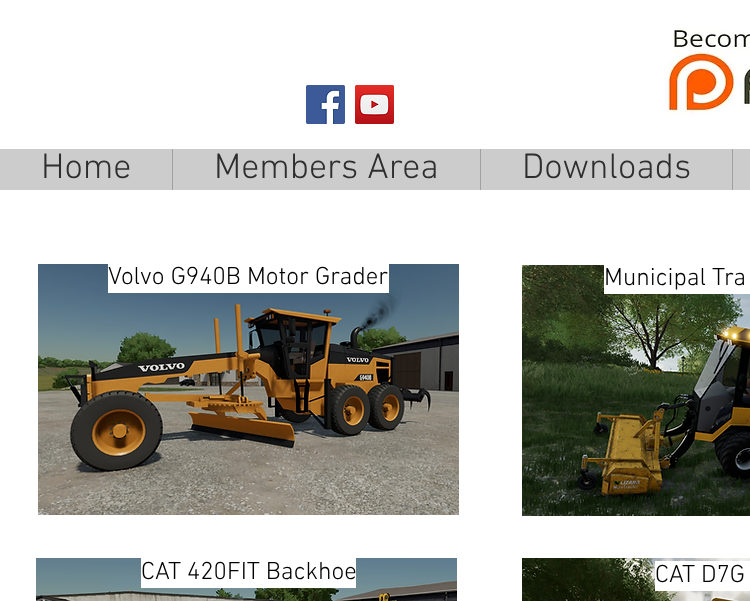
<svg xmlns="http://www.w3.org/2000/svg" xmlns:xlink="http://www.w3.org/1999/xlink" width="750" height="601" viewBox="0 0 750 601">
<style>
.cls-1{font:300 36px 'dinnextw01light';fill:#2f2e2e}
.cls-2{font:300 25px 'dinnextw01light';fill:#000000}
</style>
<rect width="100%" height="100%" fill="#ffffff"/>
<image xlink:href="image0.png" x="306" y="85" width="39" height="39"/>
<image xlink:href="image1.png" x="355" y="85" width="39" height="39"/>
<image xlink:href="image2.png" x="668" y="27" width="82" height="88"/>
<rect fill="#cccccc" x="0" y="149" width="750" height="41"/>
<rect fill="#a0a09f" x="172" y="149" width="1" height="41"/>
<rect fill="#a0a09f" x="480" y="149" width="1" height="41"/>
<rect fill="#a0a09f" x="732" y="149" width="1" height="41"/>
<image xlink:href="image3.png" x="38" y="264" width="421" height="251"/>
<rect fill="#ffffff" x="108" y="264" width="281" height="29"/>
<image xlink:href="image4.png" x="522" y="265" width="228" height="251"/>
<rect fill="#ffffff" x="604" y="265" width="146" height="29"/>
<image xlink:href="image5.png" x="36" y="558" width="421" height="43"/>
<rect fill="#ffffff" x="141" y="558" width="215" height="30"/>
<image xlink:href="image6.png" x="522" y="558" width="228" height="43"/>
<rect fill="#ffffff" x="655" y="561" width="95" height="30"/>
<text class="cls-1" x="41" y="178">Home</text>
<text class="cls-1" x="214" y="178">Members Area</text>
<text class="cls-1" x="522" y="178">Downloads</text>
<text class="cls-2" x="108" y="284">Volvo G940B Motor Grader</text>
<text class="cls-2" x="604" y="285">Municipal Tra</text>
<text class="cls-2" x="141" y="579">CAT 420FIT Backhoe</text>
<text class="cls-2" x="655" y="582">CAT D7G</text>
</svg>
